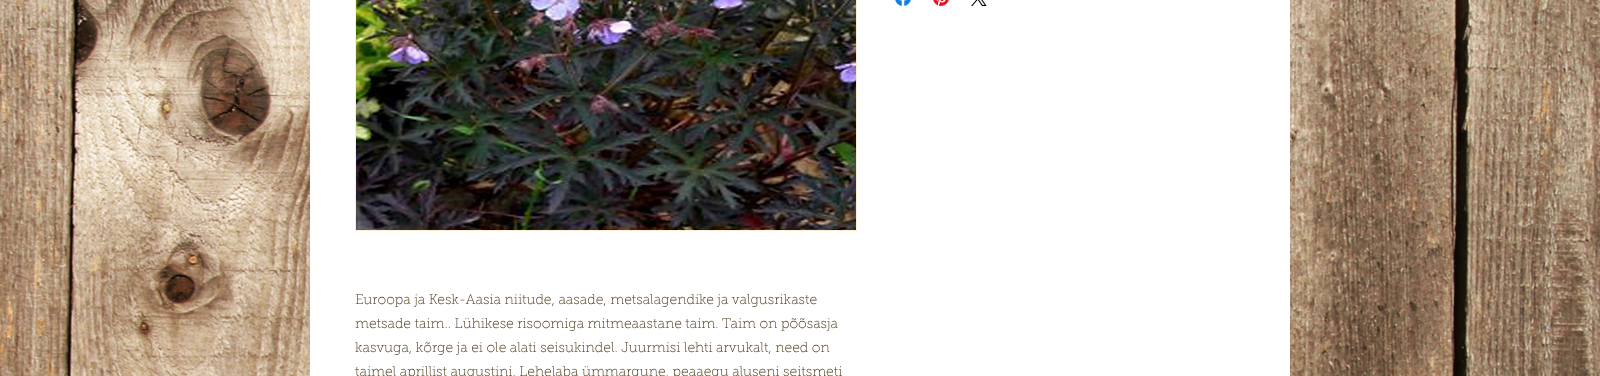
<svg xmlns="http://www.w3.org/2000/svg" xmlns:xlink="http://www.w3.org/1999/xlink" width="1600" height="376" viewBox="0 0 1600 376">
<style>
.cls-1{font:100 14px 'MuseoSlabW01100';fill:#493414}
</style>
<rect width="100%" height="100%" fill="#ffffff"/>
<image xlink:href="image0.png" x="0" y="0" width="1600" height="376"/>
<rect fill="#ffffff" x="310" y="0" width="980" height="376"/>
<image xlink:href="image1.png" x="895" y="0" width="16" height="6"/>
<image xlink:href="image2.png" x="933" y="0" width="16" height="6"/>
<image xlink:href="image3.png" x="971" y="0" width="16" height="6"/>
<rect fill="none" stroke="#ffedd1" x="355.5" y="-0.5" width="501" height="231"/>
<image xlink:href="image4.png" x="356" y="0" width="500" height="230"/>
<text class="cls-1"><tspan x="355" y="304">Euroopa ja Kesk-Aasia niitude, aasade, metsalagendike ja valgusrikaste</tspan><tspan x="355" y="328">metsade taim.. Lühikese risoomiga mitmeaastane taim. Taim on põõsasja</tspan><tspan x="355" y="352">kasvuga, kõrge ja ei ole alati seisukindel. Juurmisi lehti arvukalt, need on</tspan><tspan x="355" y="376">taimel aprillist augustini. Lehelaba ümmargune, peaaegu aluseni seitsmeti</tspan></text>
</svg>
